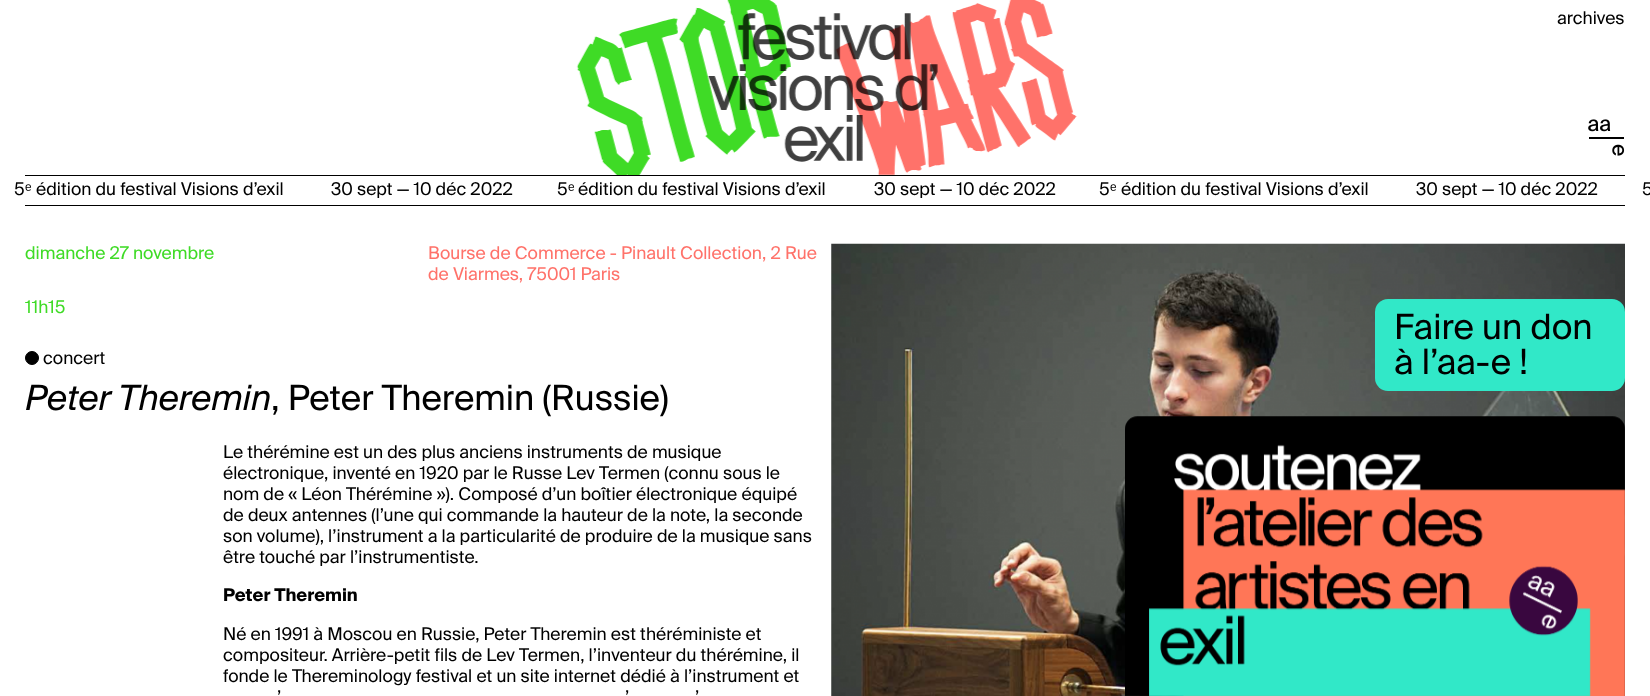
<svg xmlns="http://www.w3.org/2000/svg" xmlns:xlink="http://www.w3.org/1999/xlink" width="1650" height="696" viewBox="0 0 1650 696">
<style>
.cls-1{font:17.5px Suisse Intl;fill:#000000}
.cls-2{font:17.5px Liberation Sans;fill:#000000}
.cls-3{font:17.5px Suisse Intl;fill:#3fdb26}
.cls-4{font:17.5px Suisse Intl;fill:#ff726a}
.cls-5{font:35px 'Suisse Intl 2';fill:#000000}
.cls-6{font:35px Suisse Intl;fill:#000000}
.cls-7{font:bold 17.5px Suisse Intl;fill:#000000}
</style>
<rect width="100%" height="100%" fill="#ffffff"/>
<image xlink:href="image0.png" x="576" y="0" width="501" height="175"/>
<image xlink:href="image1.png" x="1588" y="119" width="37" height="37"/>
<rect fill="#000000" x="25" y="175" width="1600" height="1"/>
<rect fill="#000000" x="25" y="205" width="1600" height="1"/>
<circle fill="#000000" stroke="#000000" cx="32" cy="358" r="6.5"/>
<image xlink:href="image2.png" x="831" y="243" width="794" height="453"/>
<rect fill="#31e8c8" x="1375" y="299" width="250" height="92" rx="13"/>
<image xlink:href="image3.png" x="1125" y="416" width="500" height="280"/>
<text class="cls-1" x="1557" y="24">archives</text>
<text class="cls-1" x="14" y="195">5</text>
<text class="cls-2" x="25" y="195">ᵉ</text>
<text class="cls-1" x="36" y="195">édition du festival Visions d’exil</text>
<text class="cls-1" x="331" y="195">30 sept — 10 déc 2022</text>
<text class="cls-1" x="557" y="195">5</text>
<text class="cls-2" x="568" y="195">ᵉ</text>
<text class="cls-1" x="578" y="195">édition du festival Visions d’exil</text>
<text class="cls-1" x="874" y="195">30 sept — 10 déc 2022</text>
<text class="cls-1" x="1099" y="195">5</text>
<text class="cls-2" x="1110" y="195">ᵉ</text>
<text class="cls-1" x="1121" y="195">édition du festival Visions d’exil</text>
<text class="cls-1" x="1416" y="195">30 sept — 10 déc 2022</text>
<text class="cls-1" x="1642" y="195">5</text>
<text class="cls-3" x="25" y="259">dimanche 27 novembre</text>
<text class="cls-4"><tspan x="428" y="259">Bourse de Commerce - Pinault Collection, 2 Rue</tspan><tspan x="428" y="280">de Viarmes, 75001 Paris</tspan></text>
<text class="cls-3" x="25" y="313">11h15</text>
<text class="cls-1" x="43" y="364">concert</text>
<text class="cls-5" x="25" y="410">Peter Theremin</text>
<text class="cls-6" x="271" y="410">, Peter Theremin (Russie)</text>
<text class="cls-1"><tspan x="223" y="458">Le thérémine est un des plus anciens instruments de musique</tspan><tspan x="223" y="479">électronique, inventé en 1920 par le Russe Lev Termen (connu sous le</tspan><tspan x="223" y="500">nom de « Léon Thérémine »). Composé d’un boîtier électronique équipé</tspan><tspan x="223" y="521">de deux antennes (l’une qui commande la hauteur de la note, la seconde</tspan><tspan x="223" y="542">son volume), l’instrument a la particularité de produire de la musique sans</tspan><tspan x="223" y="563">être touché par l’instrumentiste.</tspan></text>
<text class="cls-7" x="223" y="601">Peter Theremin</text>
<text class="cls-1"><tspan x="223" y="640">Né en 1991 à Moscou en Russie, Peter Theremin est théréministe et</tspan><tspan x="223" y="661">compositeur. Arrière-petit fils de Lev Termen, l’inventeur du thérémine, il</tspan><tspan x="223" y="682">fonde le Thereminology festival et un site internet dédié à l’instrument et</tspan></text>
<text class="cls-1" x="277" y="703">’</text>
<text class="cls-1" x="625" y="703">’</text>
<text class="cls-1" x="695" y="703">’</text>
<text class="cls-6"><tspan x="1394" y="339">Faire un don</tspan><tspan x="1394" y="374">à l’aa-e !</tspan></text>
</svg>
